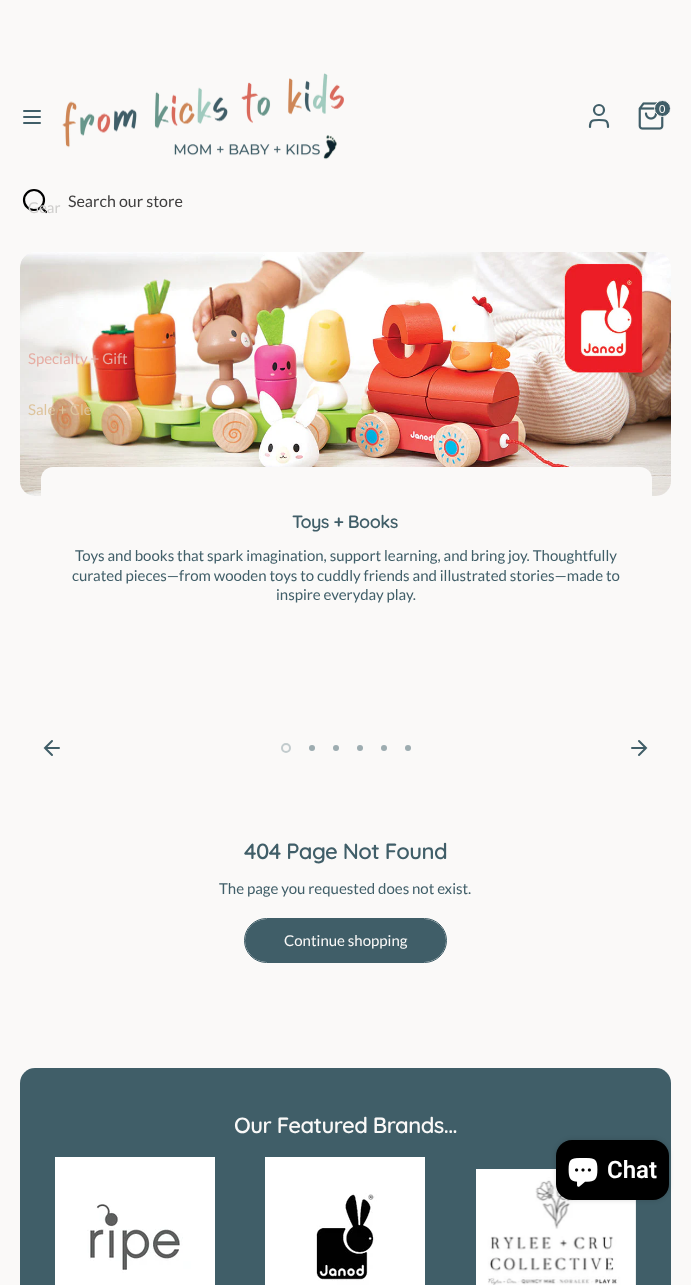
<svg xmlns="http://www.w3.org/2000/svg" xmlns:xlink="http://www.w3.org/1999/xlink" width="691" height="1285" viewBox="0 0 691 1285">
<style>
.cls-1{font:11px Lato;fill:#faf9f8}
.cls-2{font:16px Lato;fill:#3f3e3e}
.cls-3{font:15px Lato;fill:#cfcecd}
.cls-4{font:15px Lato;fill:#e6aca3}
.cls-5{font:15px Lato;fill:#ddc49c}
.cls-6{font:600 18px Quicksand;letter-spacing:-0.5px;fill:#405e68}
.cls-7{font:15px Lato;fill:#405e68}
.cls-8{font:600 22px Quicksand;letter-spacing:-0.55px;fill:#405e68}
.cls-9{font:15px Lato;fill:#faf9f8}
.cls-10{font:600 22px Quicksand;letter-spacing:-0.55px;fill:#faf9f8}
.cls-11{font:600 24px Roboto;fill:#ffffff}
</style>
<rect width="100%" height="100%" fill="#faf9f8"/>
<path fill="none" stroke="#405e68" stroke-width="2" stroke-linecap="round" stroke-linejoin="round" d="M24 117H40M24 111H40M24 123H40"/>
<image xlink:href="image0.png" x="62" y="73" width="282" height="87"/>
<path fill="none" stroke="#405e68" stroke-width="2.2" stroke-linecap="round" stroke-linejoin="round" d="M608 127C608 120 605.5 120 599 120C592.5 120 590 120 590 127"/>
<circle fill="none" stroke="#405e68" stroke-width="2.2" cx="599" cy="110" r="5"/>
<image xlink:href="image1.png" x="638" y="102" width="26" height="28"/>
<circle fill="#405e68" stroke="#faf9f8" cx="662.5" cy="108.5" r="8"/>
<circle fill="none" stroke="#000000" stroke-width="2.2" cx="34" cy="200" r="10"/>
<path fill="none" stroke="#000000" stroke-width="2.2" stroke-linecap="round" stroke-linejoin="round" d="M46 212L41 207"/>
<image xlink:href="image2.png" x="20" y="252" width="651" height="244"/>
<rect fill="#faf9f8" x="41" y="467" width="611" height="183" rx="12"/>
<circle fill="none" stroke="#c2cbcd" stroke-width="2" cx="286" cy="748" r="4"/>
<circle fill="#9dacb0" cx="312" cy="748" r="3"/>
<circle fill="#9dacb0" cx="336" cy="748" r="3"/>
<circle fill="#9dacb0" cx="360" cy="748" r="3"/>
<circle fill="#9dacb0" cx="384" cy="748" r="3"/>
<circle fill="#9dacb0" cx="408" cy="748" r="3"/>
<path fill="none" stroke="#405e68" stroke-width="2" stroke-linecap="round" d="M59 748H45M52 755L45 748L52 741"/>
<path fill="none" stroke="#405e68" stroke-width="2" stroke-linecap="round" d="M632 748H646M639 741L646 748L639 755"/>
<rect fill="none" stroke="#405e68" x="244.5" y="918.5" width="202" height="44" rx="22"/>
<rect fill="#405e68" x="245" y="919" width="201" height="43" rx="21.5"/>
<rect fill="#405e68" x="20" y="1068" width="651" height="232" rx="15"/>
<image xlink:href="image3.png" x="55" y="1157" width="160" height="128"/>
<image xlink:href="image4.png" x="265" y="1157" width="160" height="128"/>
<image xlink:href="image5.png" x="476" y="1169" width="160" height="116"/>
<rect fill="#000000" fill-opacity="0.15" filter="blur(2.5px)" x="556" y="1140" width="113" height="60" rx="16"/>
<rect fill="#000000" x="556" y="1140" width="113" height="60" rx="16"/>
<image xlink:href="image6.png" x="568" y="1158" width="30" height="29"/>
<text class="cls-1" x="659" y="113">0</text>
<text class="cls-2" x="68" y="207">Search our store</text>
<text class="cls-3" x="28" y="213">Gear</text>
<text class="cls-4" x="28" y="364">Specialty + Gift</text>
<text class="cls-5" x="28" y="415">Sale + Cle</text>
<text class="cls-6" x="292" y="528">Toys + Books</text>
<text class="cls-7" x="75" y="561">Toys and books that spark imagination, support learning, and bring joy. Thoughtfully</text>
<text class="cls-7" x="72" y="581">curated pieces—from wooden toys to cuddly friends and illustrated stories—made to</text>
<text class="cls-7" x="276" y="600">inspire everyday play.</text>
<text class="cls-8" x="244" y="859">404 Page Not Found</text>
<text class="cls-7" x="219" y="894">The page you requested does not exist.</text>
<text class="cls-9" x="284" y="946">Continue shopping</text>
<text class="cls-10" x="234" y="1133">Our Featured Brands...</text>
<text class="cls-11" x="607" y="1178">Chat</text>
</svg>
